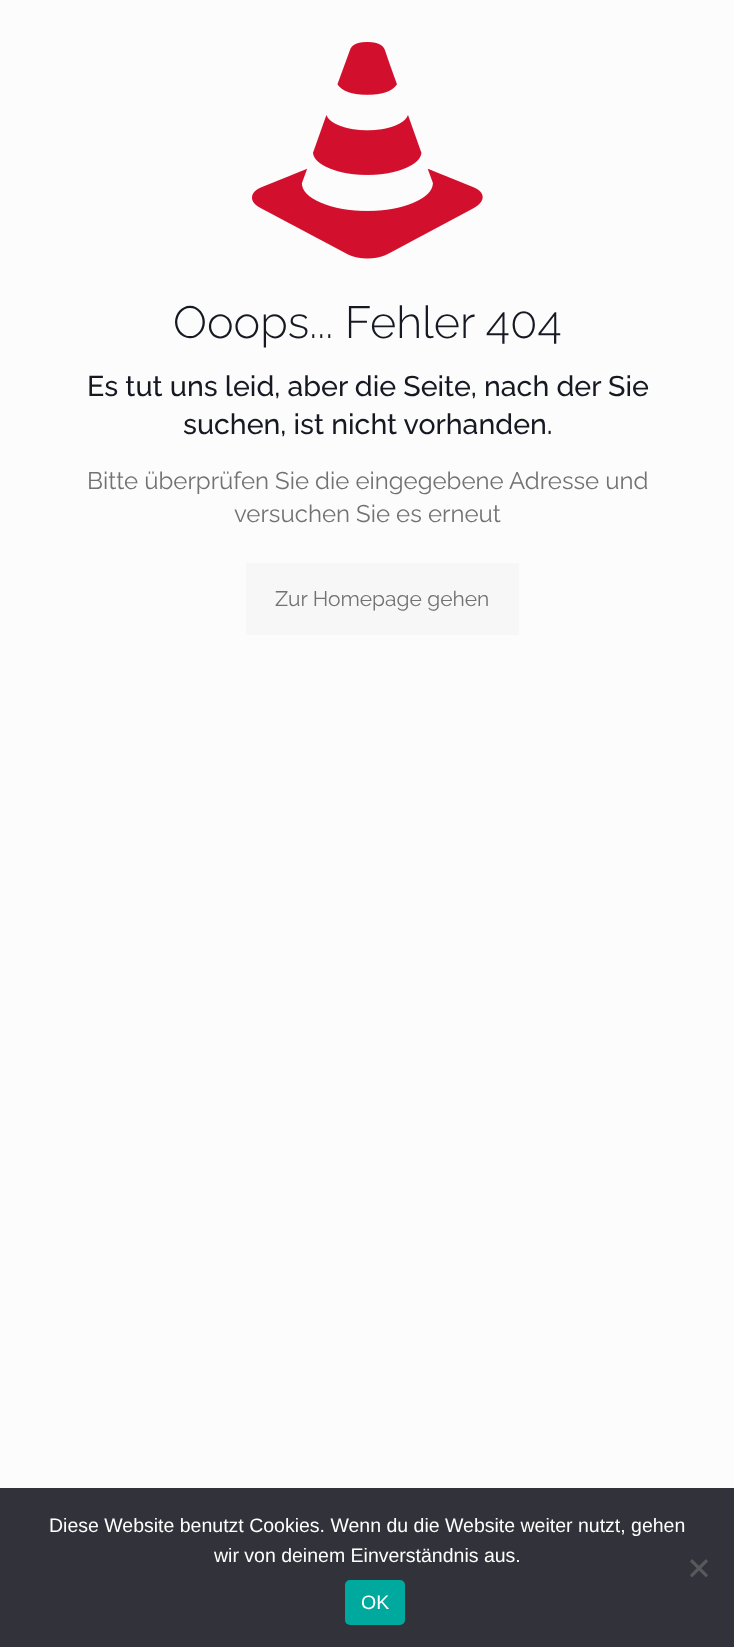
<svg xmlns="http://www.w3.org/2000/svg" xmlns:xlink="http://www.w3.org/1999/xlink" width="734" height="1647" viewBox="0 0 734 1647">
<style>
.cls-1{font:300 45px Raleway;fill:#161922}
.cls-2{font:500 28.5px Raleway;fill:#161922}
.cls-3{font:24px Raleway;fill:#727272}
.cls-4{font:21px Raleway;fill:#727272}
.cls-5{font:19.5px Liberation Sans;fill:#ffffff}
</style>
<rect width="100%" height="100%" fill="#fcfcfc"/>
<image xlink:href="image0.png" x="252" y="42" width="231" height="217"/>
<rect fill="#f7f7f7" x="246" y="563" width="273" height="72"/>
<rect fill="#32323a" x="0" y="1488" width="734" height="159"/>
<path fill="#59595d" d="M706 1559L708 1561.5L692 1577.5L690 1575Z"/>
<path fill="#59595d" d="M690 1561.5L692 1559L708 1575L706 1577.5Z"/>
<rect fill="#00a99d" x="345" y="1580" width="60" height="45" rx="5"/>
<text class="cls-1" x="173" y="338">Ooops... Fehler 404</text>
<text class="cls-2" x="87" y="396">Es tut uns leid, aber die Seite, nach der Sie</text>
<text class="cls-2" x="183" y="434">suchen, ist nicht vorhanden.</text>
<text class="cls-3" x="87" y="489">Bitte überprüfen Sie die eingegebene Adresse und</text>
<text class="cls-3" x="234" y="522">versuchen Sie es erneut</text>
<text class="cls-4" x="275" y="606">Zur Homepage gehen</text>
<text class="cls-5" x="49" y="1532">Diese Website benutzt Cookies. Wenn du die Website weiter nutzt, gehen</text>
<text class="cls-5" x="214" y="1562">wir von deinem Einverständnis aus.</text>
<text class="cls-5" x="361" y="1609">OK</text>
</svg>
